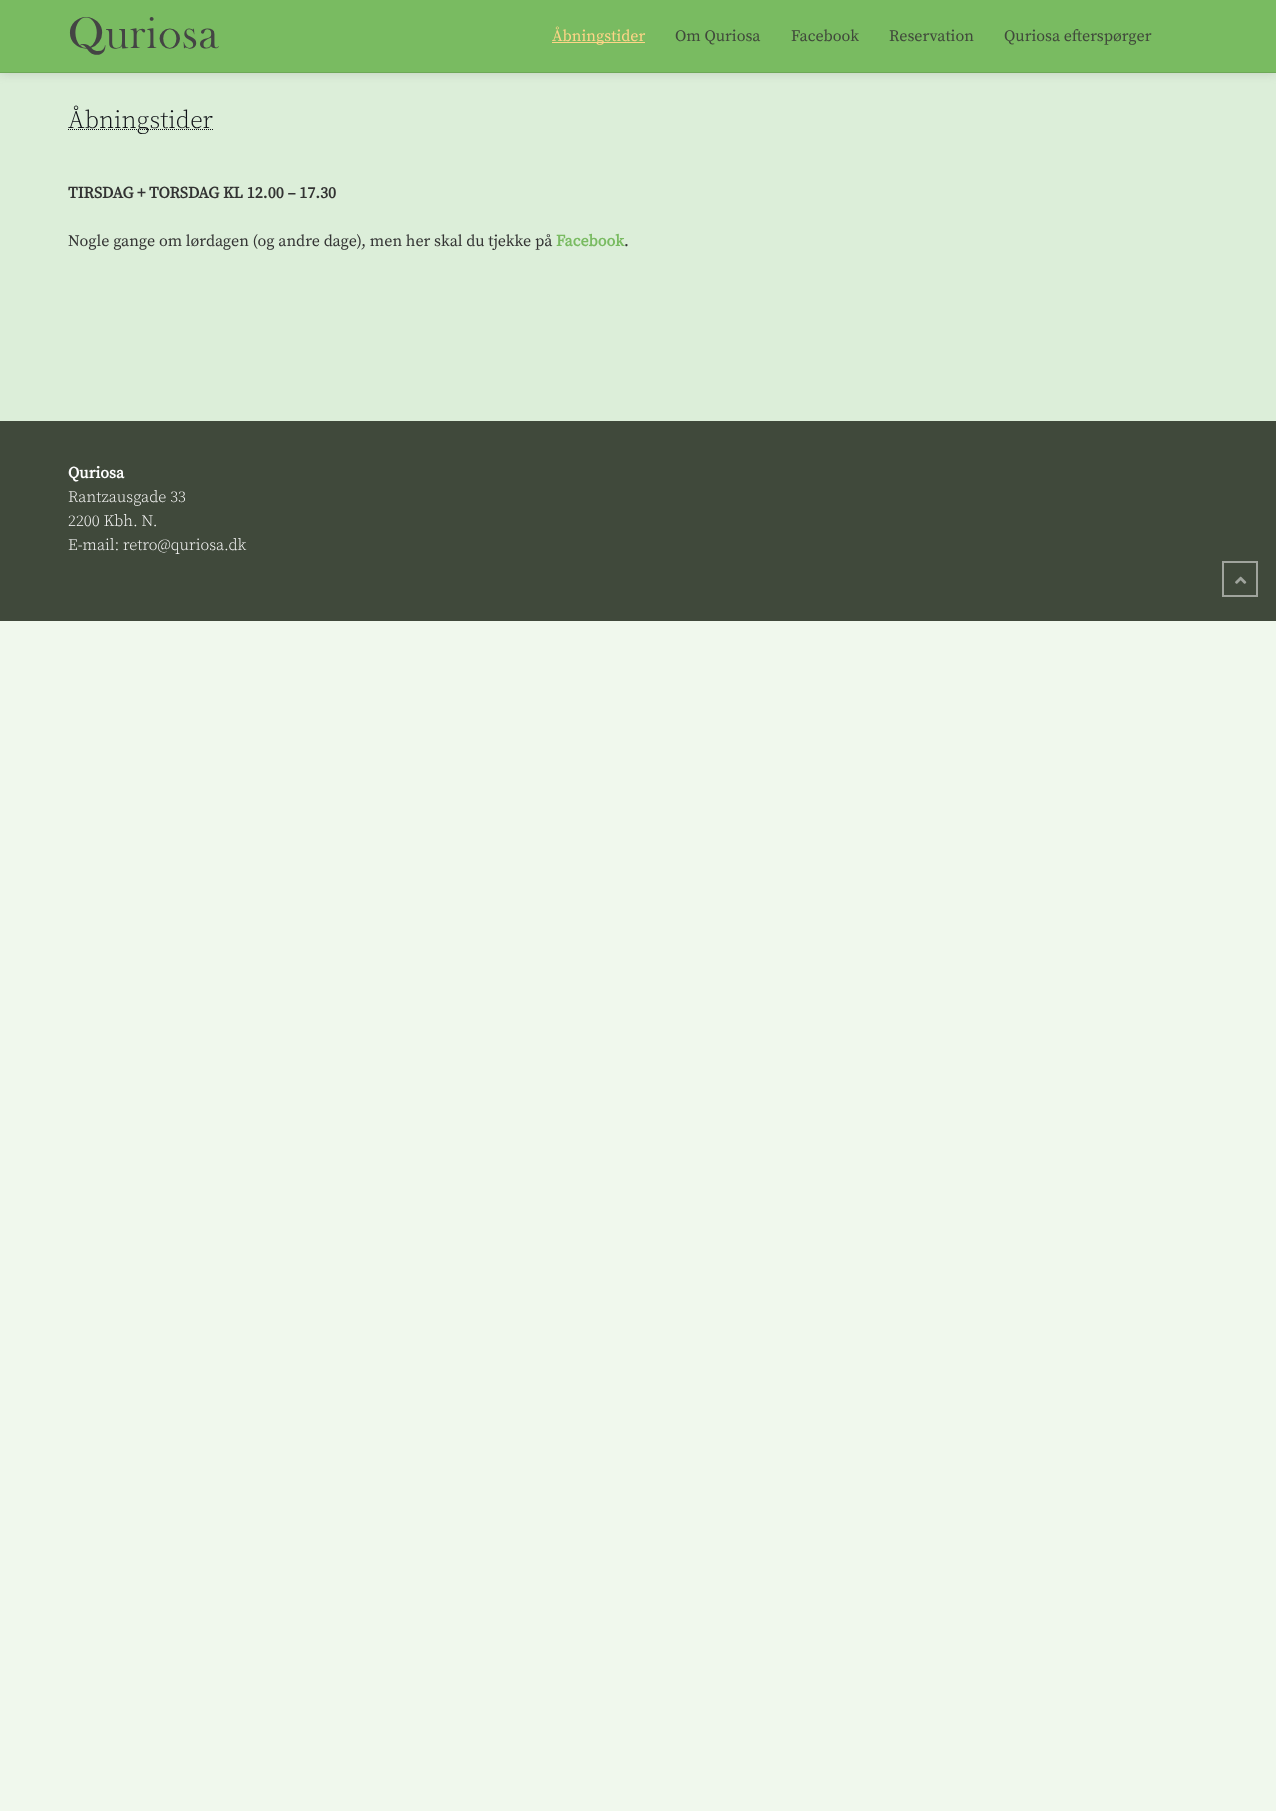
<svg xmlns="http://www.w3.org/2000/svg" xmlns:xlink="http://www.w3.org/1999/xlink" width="1276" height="1811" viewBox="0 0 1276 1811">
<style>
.cls-1{font:45px 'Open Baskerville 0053';fill:#444444}
.cls-2{font:16px Source Serif Pro;fill:#ffd588}
.cls-3{font:16px Source Serif Pro;fill:#40493b}
.cls-4{font:300 25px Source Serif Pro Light;fill:#0e1015}
.cls-5{font:bold 16px Source Serif Pro;fill:#333333}
.cls-6{font:16px Source Serif Pro;fill:#333333}
.cls-7{font:bold 16px Source Serif Pro;fill:#79bb61}
.cls-8{font:bold 16px Source Serif Pro;fill:#fefefe}
.cls-9{font:300 16px Source Serif Pro Light;fill:#fefefe}
</style>
<rect width="100%" height="100%" fill="#f0f8ed"/>
<rect fill="#dceed9" x="0" y="73" width="1276" height="348"/>
<rect fill="#999999" fill-opacity="0.33" filter="blur(5px)" x="0" y="1" width="1276" height="73"/>
<rect fill="#79bb61" x="0" y="0" width="1276" height="72"/>
<rect fill="#6da857" x="0" y="72" width="1276" height="1"/>
<rect fill="#ffd588" x="552" y="42" width="93" height="1"/>
<path fill="none" stroke="#0e1015" stroke-dasharray="1 1" d="M68 129.5H213"/>
<rect fill="#40493b" x="0" y="421" width="1276" height="200"/>
<rect fill="none" stroke="#a0a49d" stroke-width="2" x="1223" y="562" width="34" height="34"/>
<image xlink:href="image0.png" x="1235" y="576" width="12" height="8"/>
<text class="cls-1" x="68" y="48">Quriosa</text>
<text class="cls-2" x="552" y="41">Åbningstider</text>
<text class="cls-3" x="675" y="41">Om Quriosa</text>
<text class="cls-3" x="791" y="41">Facebook</text>
<text class="cls-3" x="889" y="41">Reservation</text>
<text class="cls-3" x="1004" y="41">Quriosa efterspørger</text>
<text class="cls-4" x="68" y="128">Åbningstider</text>
<text class="cls-5" x="68" y="198">TIRSDAG + TORSDAG KL 12.00 – 17.30</text>
<text class="cls-6" x="68" y="246">Nogle gange om lørdagen (og andre dage), men her skal du tjekke på</text>
<text class="cls-7" x="556" y="246">Facebook</text>
<text class="cls-6" x="624" y="246">.</text>
<text class="cls-8" x="68" y="478">Quriosa</text>
<text class="cls-9"><tspan x="68" y="502">Rantzausgade 33</tspan><tspan x="68" y="526">2200 Kbh. N.</tspan><tspan x="68" y="550">E-mail:</tspan></text>
<text class="cls-9" x="123" y="550">retro@quriosa.dk</text>
</svg>
